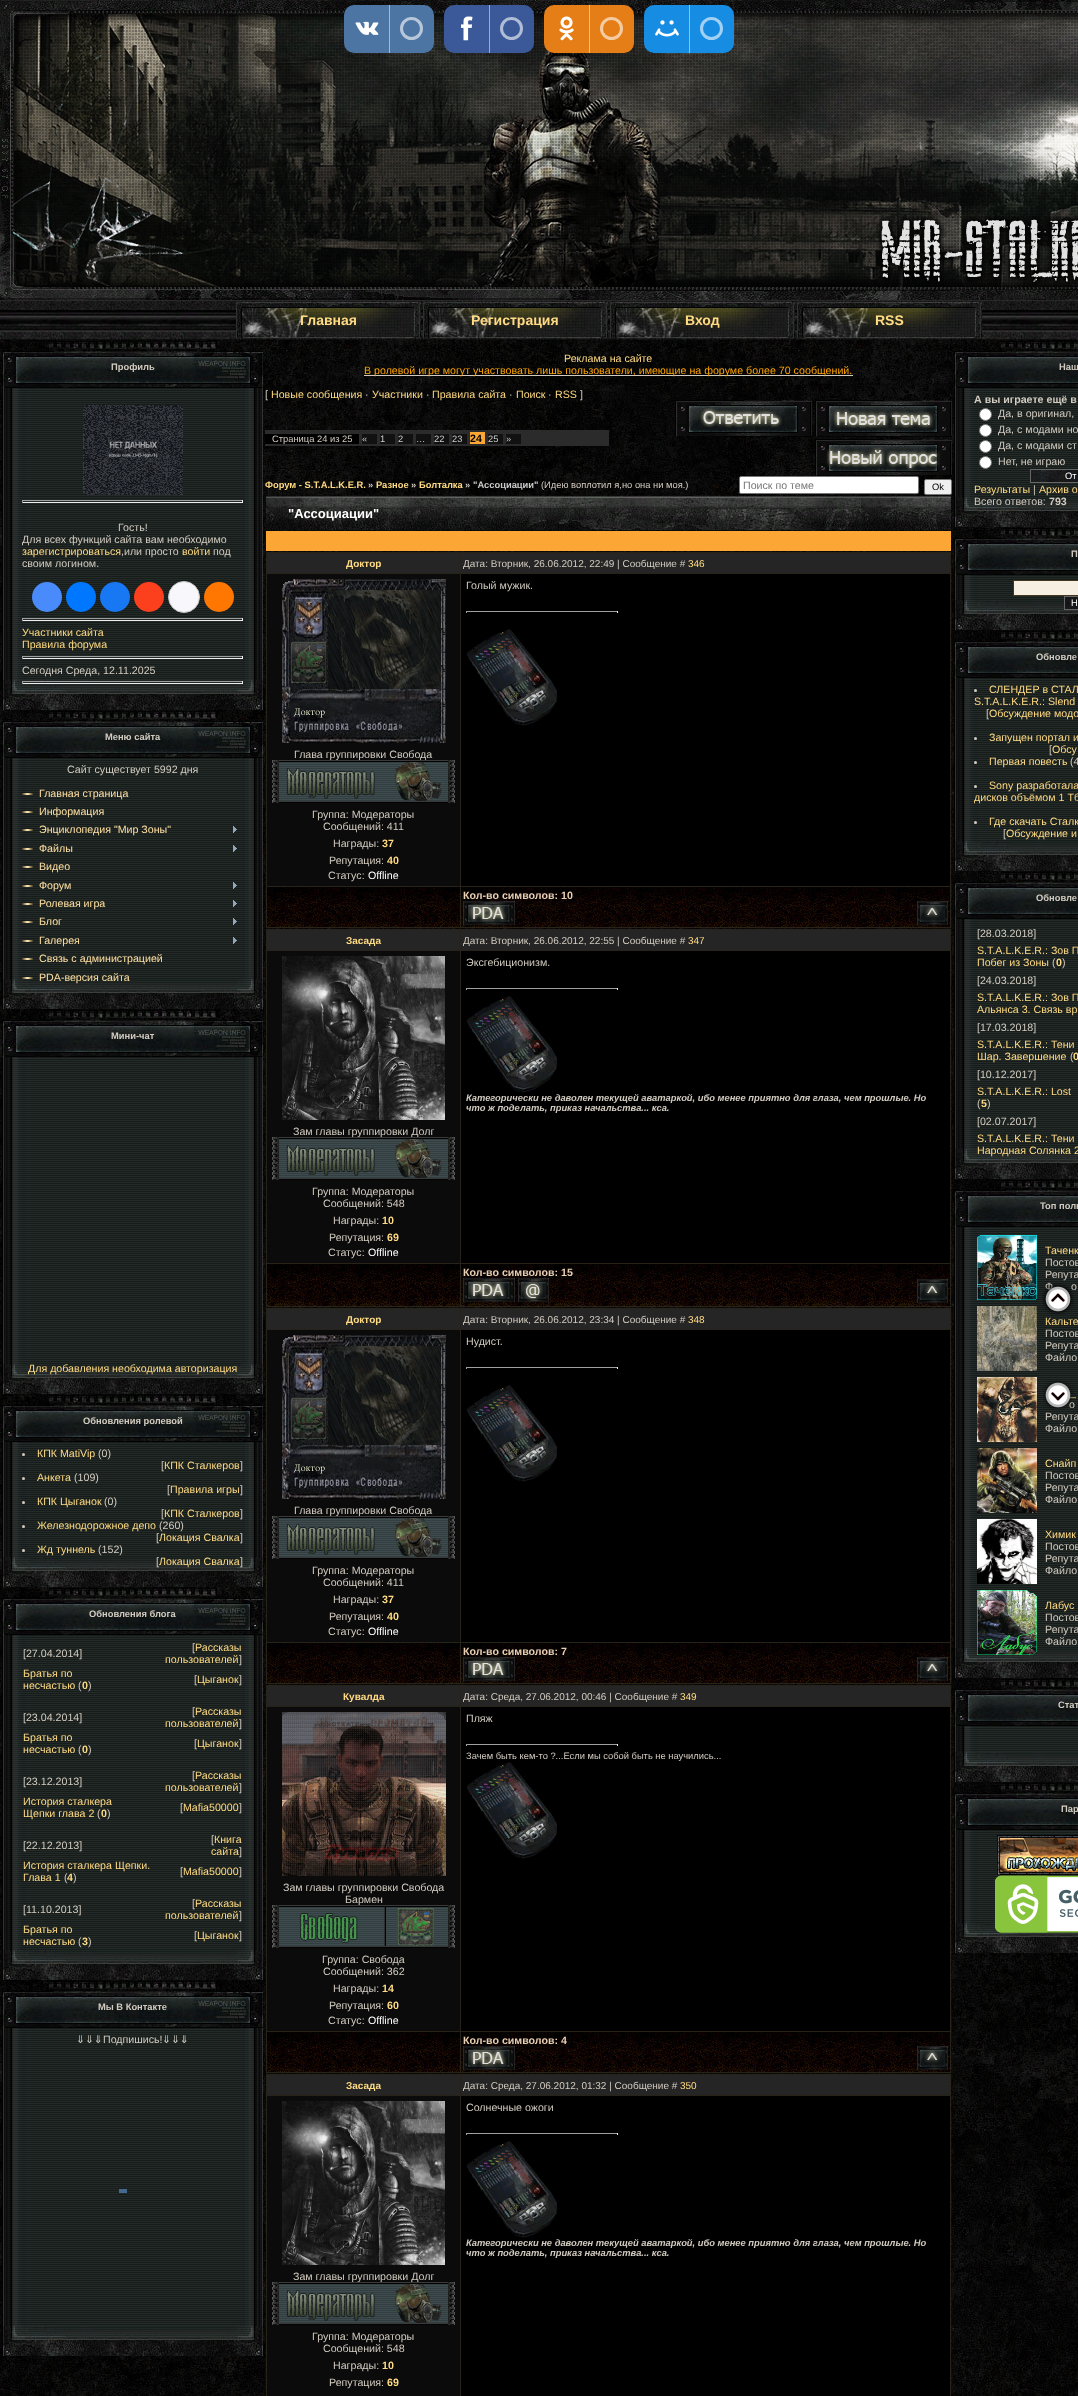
<svg xmlns="http://www.w3.org/2000/svg" xmlns:xlink="http://www.w3.org/1999/xlink" width="1078" height="2396" viewBox="0 0 1078 2396">
<style>
.cls-1{font:bold 14px Liberation Sans;fill:#ffdb83}
.cls-2{font:bold 9.35px Liberation Sans;fill:#d2cbc0}
.cls-3{font:10.65px Liberation Sans;fill:#d2cbc0}
.cls-4{font:10.65px Liberation Sans;fill:#ffdb83}
.cls-5{font:10.65px Liberation Sans;fill:#ffe0a2}
.cls-6{font:bold 10.65px Liberation Sans;fill:#ffdb83}
.cls-7{font:10.65px DejaVu Sans;fill:#d2cbc0}
.cls-8{font:10.65px Liberation Sans;fill:#ffa500}
.cls-9{font:9.35px Liberation Sans;fill:#d2cbc0}
.cls-10{font:9.35px Liberation Sans;fill:#cccccc}
.cls-11{font:bold 10.65px Liberation Sans;fill:#000000}
.cls-12{font:bold 9.35px Liberation Sans;fill:#ffdb83}
.cls-13{font:bold 9.35px Liberation Sans;fill:#cccccc}
.cls-14{font:10.65px Liberation Sans;fill:#757575}
.cls-15{font:9.35px Liberation Sans;fill:#000000}
.cls-16{font:bold 13px Liberation Sans;fill:#ffffff}
.cls-17{font:bold 10px Liberation Sans;fill:#ffdb83}
.cls-18{font:10px Liberation Sans;fill:#d2cbc0}
.cls-19{font:10px Liberation Sans;fill:#ffdb83}
.cls-20{font:10.65px Liberation Sans;fill:#ffffff}
.cls-21{font:bold 10.65px Liberation Sans;fill:#e9d0b3}
.cls-22{font:italic bold 9.35px Liberation Sans;fill:#d2cbc0}
.cls-23{font:bold 10.65px Liberation Sans;fill:#d2cbc0}
.cls-24{font:9.35px Liberation Sans;fill:#ffffff}
</style>
<rect width="100%" height="100%" fill="#ffffff"/>
<image xlink:href="image0.png" x="0" y="0" width="1078" height="2396"/>
<image xlink:href="image1.png" x="0" y="0" width="1078" height="300"/>
<rect fill="#4d75a3" x="344" y="5" width="90" height="48" rx="10"/>
<image xlink:href="image2.png" x="355" y="21" width="24" height="14"/>
<rect fill="#a6bad1" x="389" y="5" width="1" height="48"/>
<circle fill="none" stroke="#b8c8da" stroke-width="3" cx="411.5" cy="28.5" r="10"/>
<rect fill="#3b5998" x="444" y="5" width="90" height="48" rx="10"/>
<image xlink:href="image3.png" x="461" y="16" width="12" height="25"/>
<rect fill="#9daccc" x="489" y="5" width="1" height="48"/>
<circle fill="none" stroke="#b1bdd6" stroke-width="3" cx="511.5" cy="28.5" r="10"/>
<rect fill="#e67e17" x="544" y="5" width="90" height="48" rx="10"/>
<image xlink:href="image4.png" x="559" y="16" width="15" height="25"/>
<rect fill="#f3bf8b" x="589" y="5" width="1" height="48"/>
<circle fill="none" stroke="#f5cba2" stroke-width="3" cx="611.5" cy="28.5" r="10"/>
<rect fill="#168de2" x="644" y="5" width="90" height="48" rx="10"/>
<image xlink:href="image5.png" x="655" y="20" width="24" height="17"/>
<rect fill="#8bc6f1" x="689" y="5" width="1" height="48"/>
<circle fill="none" stroke="#a2d1f3" stroke-width="3" cx="711.5" cy="28.5" r="10"/>
<image xlink:href="image6.png" x="0" y="300" width="1078" height="40"/>
<image xlink:href="image7.png" x="236" y="302" width="185" height="36"/>
<image xlink:href="image7.png" x="423" y="302" width="185" height="36"/>
<image xlink:href="image7.png" x="610" y="302" width="185" height="36"/>
<image xlink:href="image7.png" x="797" y="302" width="185" height="36"/>
<image xlink:href="image8.png" x="49" y="341" width="168" height="8"/>
<image xlink:href="image9.png" x="2" y="388" width="261" height="292"/>
<image xlink:href="image10.png" x="2" y="351" width="261" height="37"/>
<image xlink:href="image11.png" x="2" y="680" width="261" height="30"/>
<image xlink:href="image12.png" x="83" y="405" width="100" height="90"/>
<rect fill="#9f9f9f" x="22" y="500" width="221" height="1"/>
<rect fill="#eeeeee" x="242" y="500" width="1" height="3"/>
<rect fill="#eeeeee" x="22" y="502" width="221" height="1"/>
<rect fill="#9f9f9f" x="22" y="500" width="1" height="3"/>
<circle fill="#498bfa" cx="47" cy="597" r="15"/>
<circle fill="#0077ff" cx="81" cy="597" r="15"/>
<circle fill="#1877f2" cx="115" cy="597" r="15"/>
<circle fill="#fc3f1d" cx="149" cy="597" r="15"/>
<circle fill="#f8f8fc" stroke="#c4c4c4" cx="184" cy="597" r="15.5"/>
<circle fill="#ff7700" cx="219" cy="597" r="15"/>
<rect fill="#9f9f9f" x="22" y="618" width="221" height="1"/>
<rect fill="#eeeeee" x="242" y="618" width="1" height="3"/>
<rect fill="#eeeeee" x="22" y="620" width="221" height="1"/>
<rect fill="#9f9f9f" x="22" y="618" width="1" height="3"/>
<rect fill="#9f9f9f" x="22" y="656" width="221" height="1"/>
<rect fill="#eeeeee" x="242" y="656" width="1" height="3"/>
<rect fill="#eeeeee" x="22" y="658" width="221" height="1"/>
<rect fill="#9f9f9f" x="22" y="656" width="1" height="3"/>
<rect fill="#9f9f9f" x="22" y="681" width="221" height="1"/>
<rect fill="#eeeeee" x="242" y="681" width="1" height="3"/>
<rect fill="#eeeeee" x="22" y="683" width="221" height="1"/>
<rect fill="#9f9f9f" x="22" y="681" width="1" height="3"/>
<image xlink:href="image8.png" x="49" y="711" width="168" height="8"/>
<image xlink:href="image13.png" x="2" y="758" width="261" height="221"/>
<image xlink:href="image10.png" x="2" y="721" width="261" height="37"/>
<image xlink:href="image11.png" x="2" y="979" width="261" height="30"/>
<image xlink:href="image14.png" x="22" y="793" width="11" height="2"/>
<image xlink:href="image14.png" x="22" y="811" width="11" height="2"/>
<image xlink:href="image14.png" x="22" y="829" width="11" height="2"/>
<image xlink:href="image15.png" x="233" y="826" width="4" height="7"/>
<image xlink:href="image14.png" x="22" y="848" width="11" height="2"/>
<image xlink:href="image16.png" x="233" y="845" width="4" height="7"/>
<image xlink:href="image14.png" x="22" y="866" width="11" height="2"/>
<image xlink:href="image14.png" x="22" y="885" width="11" height="2"/>
<image xlink:href="image15.png" x="233" y="882" width="4" height="7"/>
<image xlink:href="image14.png" x="22" y="903" width="11" height="2"/>
<image xlink:href="image15.png" x="233" y="900" width="4" height="7"/>
<image xlink:href="image14.png" x="22" y="921" width="11" height="2"/>
<image xlink:href="image15.png" x="233" y="918" width="4" height="7"/>
<image xlink:href="image14.png" x="22" y="940" width="11" height="2"/>
<image xlink:href="image16.png" x="233" y="937" width="4" height="7"/>
<image xlink:href="image14.png" x="22" y="958" width="11" height="2"/>
<image xlink:href="image14.png" x="22" y="977" width="11" height="2"/>
<image xlink:href="image8.png" x="49" y="1010" width="168" height="8"/>
<image xlink:href="image17.png" x="2" y="1057" width="261" height="307"/>
<image xlink:href="image10.png" x="2" y="1020" width="261" height="37"/>
<image xlink:href="image11.png" x="2" y="1364" width="261" height="30"/>
<image xlink:href="image8.png" x="49" y="1395" width="168" height="8"/>
<image xlink:href="image18.png" x="2" y="1442" width="261" height="115"/>
<image xlink:href="image10.png" x="2" y="1405" width="261" height="37"/>
<image xlink:href="image11.png" x="2" y="1557" width="261" height="30"/>
<circle fill="#d2cbc0" cx="23.5" cy="1454.5" r="1.5"/>
<circle fill="#d2cbc0" cx="23.5" cy="1478.5" r="1.5"/>
<circle fill="#d2cbc0" cx="23.5" cy="1502.5" r="1.5"/>
<circle fill="#d2cbc0" cx="23.5" cy="1526.5" r="1.5"/>
<circle fill="#d2cbc0" cx="23.5" cy="1550.5" r="1.5"/>
<image xlink:href="image8.png" x="49" y="1588" width="168" height="8"/>
<image xlink:href="image19.png" x="2" y="1635" width="261" height="315"/>
<image xlink:href="image10.png" x="2" y="1598" width="261" height="37"/>
<image xlink:href="image11.png" x="2" y="1950" width="261" height="30"/>
<image xlink:href="image20.png" x="49" y="1981" width="167" height="8"/>
<image xlink:href="image21.png" x="2" y="2028" width="261" height="298"/>
<image xlink:href="image10.png" x="2" y="1991" width="261" height="37"/>
<image xlink:href="image11.png" x="2" y="2326" width="261" height="30"/>
<rect fill="#45688e" x="119" y="2189" width="8" height="4"/>
<rect fill="#d2cbc0" x="364" y="375" width="489" height="1"/>
<rect fill="#2b2b2b" x="265" y="430" width="344" height="16"/>
<rect fill="#000000" x="265" y="434" width="94" height="10"/>
<rect fill="#111111" x="362" y="434" width="15" height="10"/>
<rect fill="#111111" x="380" y="434" width="15" height="10"/>
<rect fill="#111111" x="398" y="434" width="15" height="10"/>
<rect fill="#111111" x="416" y="434" width="15" height="10"/>
<rect fill="#111111" x="434" y="434" width="15" height="10"/>
<rect fill="#111111" x="452" y="434" width="15" height="10"/>
<rect fill="#fca735" x="470" y="432" width="15" height="12"/>
<rect fill="#111111" x="488" y="434" width="15" height="10"/>
<rect fill="#111111" x="506" y="434" width="15" height="10"/>
<image xlink:href="image22.png" x="675" y="400" width="137" height="37"/>
<image xlink:href="image23.png" x="815" y="400" width="137" height="37"/>
<image xlink:href="image24.png" x="815" y="439" width="137" height="37"/>
<rect fill="#ffffff" stroke="#767676" x="739.5" y="476.5" width="179" height="17" rx="1.5"/>
<rect fill="#efefef" stroke="#767676" x="924.5" y="479.5" width="27" height="15" rx="1.5"/>
<image xlink:href="image25.png" x="265" y="495" width="687" height="1901"/>
<image xlink:href="image26.png" x="266" y="496" width="685" height="34"/>
<rect fill="#fca735" x="266" y="531" width="685" height="20"/>
<rect fill="#282318" x="266" y="552" width="685" height="376"/>
<rect fill="#252525" x="267" y="553" width="193" height="20"/>
<rect fill="#252525" x="461" y="553" width="489" height="20"/>
<rect fill="#000000" x="461" y="574" width="489" height="312"/>
<rect fill="#9f9f9f" x="466" y="611" width="152" height="1"/>
<rect fill="#eeeeee" x="617" y="611" width="1" height="2"/>
<rect fill="#9f9f9f" x="466" y="611" width="1" height="2"/>
<image xlink:href="image27.png" x="467" y="629" width="90" height="97"/>
<rect fill="#0b0b0b" x="267" y="574" width="193" height="312"/>
<image xlink:href="image28.png" x="282" y="579" width="164" height="164"/>
<image xlink:href="image30.png" x="267" y="887" width="193" height="40"/>
<image xlink:href="image31.png" x="461" y="887" width="489" height="40"/>
<image xlink:href="image32.png" x="463" y="901" width="52" height="24"/>
<image xlink:href="image33.png" x="917" y="901" width="31" height="24"/>
<rect fill="#282318" x="266" y="929" width="685" height="378"/>
<rect fill="#252525" x="267" y="930" width="193" height="20"/>
<rect fill="#252525" x="461" y="930" width="489" height="20"/>
<rect fill="#000000" x="461" y="951" width="489" height="312"/>
<rect fill="#9f9f9f" x="466" y="988" width="152" height="1"/>
<rect fill="#eeeeee" x="617" y="988" width="1" height="2"/>
<rect fill="#9f9f9f" x="466" y="988" width="1" height="2"/>
<image xlink:href="image27.png" x="467" y="996" width="90" height="97"/>
<rect fill="#0b0b0b" x="267" y="951" width="193" height="312"/>
<image xlink:href="image34.png" x="282" y="956" width="163" height="164"/>
<image xlink:href="image35.png" x="267" y="1264" width="193" height="42"/>
<image xlink:href="image36.png" x="461" y="1264" width="489" height="42"/>
<image xlink:href="image32.png" x="463" y="1278" width="52" height="24"/>
<image xlink:href="image37.png" x="518" y="1278" width="31" height="24"/>
<image xlink:href="image33.png" x="917" y="1279" width="31" height="24"/>
<rect fill="#282318" x="266" y="1308" width="685" height="376"/>
<rect fill="#252525" x="267" y="1309" width="193" height="20"/>
<rect fill="#252525" x="461" y="1309" width="489" height="20"/>
<rect fill="#000000" x="461" y="1330" width="489" height="312"/>
<rect fill="#9f9f9f" x="466" y="1367" width="152" height="1"/>
<rect fill="#eeeeee" x="617" y="1367" width="1" height="2"/>
<rect fill="#9f9f9f" x="466" y="1367" width="1" height="2"/>
<image xlink:href="image27.png" x="467" y="1385" width="90" height="97"/>
<rect fill="#0b0b0b" x="267" y="1330" width="193" height="312"/>
<image xlink:href="image28.png" x="282" y="1335" width="164" height="164"/>
<image xlink:href="image30.png" x="267" y="1643" width="193" height="40"/>
<image xlink:href="image31.png" x="461" y="1643" width="489" height="40"/>
<image xlink:href="image32.png" x="463" y="1657" width="52" height="24"/>
<image xlink:href="image33.png" x="917" y="1657" width="31" height="24"/>
<rect fill="#282318" x="266" y="1685" width="685" height="388"/>
<rect fill="#252525" x="267" y="1686" width="193" height="20"/>
<rect fill="#252525" x="461" y="1686" width="489" height="20"/>
<rect fill="#000000" x="461" y="1707" width="489" height="324"/>
<rect fill="#9f9f9f" x="466" y="1744" width="152" height="1"/>
<rect fill="#eeeeee" x="617" y="1744" width="1" height="2"/>
<rect fill="#9f9f9f" x="466" y="1744" width="1" height="2"/>
<image xlink:href="image27.png" x="467" y="1762" width="90" height="97"/>
<rect fill="#0b0b0b" x="267" y="1707" width="193" height="324"/>
<image xlink:href="image38.png" x="282" y="1712" width="164" height="164"/>
<image xlink:href="image30.png" x="267" y="2032" width="193" height="40"/>
<image xlink:href="image31.png" x="461" y="2032" width="489" height="40"/>
<image xlink:href="image32.png" x="463" y="2046" width="52" height="24"/>
<image xlink:href="image33.png" x="917" y="2046" width="31" height="24"/>
<rect fill="#282318" x="266" y="2074" width="685" height="322"/>
<rect fill="#252525" x="267" y="2075" width="193" height="20"/>
<rect fill="#252525" x="461" y="2075" width="489" height="20"/>
<rect fill="#000000" x="461" y="2096" width="489" height="300"/>
<rect fill="#9f9f9f" x="466" y="2133" width="152" height="1"/>
<rect fill="#eeeeee" x="617" y="2133" width="1" height="2"/>
<rect fill="#9f9f9f" x="466" y="2133" width="1" height="2"/>
<image xlink:href="image27.png" x="467" y="2141" width="90" height="97"/>
<rect fill="#0b0b0b" x="267" y="2096" width="193" height="300"/>
<image xlink:href="image34.png" x="282" y="2101" width="163" height="164"/>
<image xlink:href="image42.png" x="1001" y="341" width="77" height="8"/>
<image xlink:href="image43.png" x="954" y="388" width="124" height="109"/>
<image xlink:href="image44.png" x="954" y="351" width="124" height="37"/>
<image xlink:href="image45.png" x="954" y="497" width="124" height="30"/>
<circle fill="#ffffff" stroke="#767676" cx="985.5" cy="414.5" r="6"/>
<circle fill="#ffffff" stroke="#767676" cx="985.5" cy="430.5" r="6"/>
<circle fill="#ffffff" stroke="#767676" cx="985.5" cy="446.5" r="6"/>
<circle fill="#ffffff" stroke="#767676" cx="985.5" cy="462.5" r="6"/>
<image xlink:href="image46.png" x="1031" y="470" width="47" height="12"/>
<rect fill="none" stroke="#666666" x="1030.5" y="469.5" width="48" height="13"/>
<image xlink:href="image42.png" x="1001" y="528" width="77" height="8"/>
<image xlink:href="image47.png" x="954" y="575" width="124" height="25"/>
<image xlink:href="image44.png" x="954" y="538" width="124" height="37"/>
<image xlink:href="image45.png" x="954" y="600" width="124" height="30"/>
<rect fill="#f8efe3" stroke="#44361e" x="1013.5" y="580.5" width="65" height="15"/>
<image xlink:href="image48.png" x="1065" y="597" width="13" height="12"/>
<rect fill="none" stroke="#666666" x="1064.5" y="596.5" width="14" height="13"/>
<image xlink:href="image42.png" x="1001" y="631" width="77" height="8"/>
<image xlink:href="image49.png" x="954" y="678" width="124" height="163"/>
<image xlink:href="image44.png" x="954" y="641" width="124" height="37"/>
<image xlink:href="image45.png" x="954" y="841" width="124" height="30"/>
<circle fill="#d2cbc0" cx="975.5" cy="690.5" r="1.5"/>
<circle fill="#d2cbc0" cx="975.5" cy="738.5" r="1.5"/>
<circle fill="#d2cbc0" cx="975.5" cy="762.5" r="1.5"/>
<circle fill="#d2cbc0" cx="975.5" cy="786.5" r="1.5"/>
<circle fill="#d2cbc0" cx="975.5" cy="822.5" r="1.5"/>
<image xlink:href="image42.png" x="1001" y="872" width="77" height="8"/>
<image xlink:href="image50.png" x="954" y="919" width="124" height="230"/>
<image xlink:href="image44.png" x="954" y="882" width="124" height="37"/>
<image xlink:href="image45.png" x="954" y="1149" width="124" height="30"/>
<image xlink:href="image42.png" x="1001" y="1180" width="77" height="8"/>
<image xlink:href="image51.png" x="954" y="1227" width="124" height="421"/>
<image xlink:href="image44.png" x="954" y="1190" width="124" height="37"/>
<image xlink:href="image45.png" x="954" y="1648" width="124" height="30"/>
<image xlink:href="image52.png" x="977" y="1235" width="60" height="65"/>
<image xlink:href="image53.png" x="977" y="1306" width="60" height="65"/>
<image xlink:href="image54.png" x="977" y="1377" width="60" height="65"/>
<image xlink:href="image55.png" x="977" y="1448" width="60" height="65"/>
<image xlink:href="image56.png" x="977" y="1519" width="60" height="65"/>
<image xlink:href="image57.png" x="977" y="1590" width="60" height="65"/>
<image xlink:href="image42.png" x="1001" y="1679" width="77" height="8"/>
<image xlink:href="image58.png" x="954" y="1726" width="124" height="26"/>
<image xlink:href="image44.png" x="954" y="1689" width="124" height="37"/>
<image xlink:href="image45.png" x="954" y="1752" width="124" height="30"/>
<image xlink:href="image42.png" x="1001" y="1783" width="77" height="8"/>
<image xlink:href="image59.png" x="954" y="1830" width="124" height="93"/>
<image xlink:href="image44.png" x="954" y="1793" width="124" height="37"/>
<image xlink:href="image45.png" x="954" y="1923" width="124" height="30"/>
<image xlink:href="image60.png" x="997" y="1835" width="81" height="40"/>
<image xlink:href="image61.png" x="995" y="1875" width="83" height="58"/>
<text class="cls-1" x="300" y="325">Главная</text>
<text class="cls-1" x="471" y="325">Регистрация</text>
<text class="cls-1" x="685" y="325">Вход</text>
<text class="cls-1" x="875" y="325">RSS</text>
<text class="cls-2" x="111" y="370">Профиль</text>
<text class="cls-3" x="118" y="531">Гость!</text>
<text class="cls-3" x="22" y="543">Для всех функций сайта вам необходимо</text>
<text class="cls-4" x="22" y="555">зарегистрироваться</text>
<text class="cls-3" x="121" y="555">,или просто</text>
<text class="cls-4" x="182" y="555">войти</text>
<text class="cls-3" x="213" y="555">под</text>
<text class="cls-3" x="22" y="567">своим логином.</text>
<text class="cls-4"><tspan x="22" y="636">Участники сайта</tspan><tspan x="22" y="648">Правила форума</tspan></text>
<text class="cls-3" x="22" y="674">Сегодня Среда, 12.11.2025</text>
<text class="cls-2" x="105" y="740">Меню сайта</text>
<text class="cls-3" x="67" y="773">Сайт существует 5992 дня</text>
<text class="cls-5"><tspan x="39" y="797">Главная страница</tspan><tspan x="39" y="815">Информация</tspan><tspan x="39" y="833">Энциклопедия "Мир Зоны"</tspan><tspan x="39" y="852">Файлы</tspan><tspan x="39" y="870">Видео</tspan><tspan x="39" y="889">Форум</tspan><tspan x="39" y="907">Ролевая игра</tspan><tspan x="39" y="925">Блог</tspan><tspan x="39" y="944">Галерея</tspan><tspan x="39" y="962">Связь с администрацией</tspan><tspan x="39" y="981">PDA-версия сайта</tspan></text>
<text class="cls-2" x="111" y="1039">Мини-чат</text>
<text class="cls-4" x="28" y="1372">Для добавления необходима авторизация</text>
<text class="cls-2" x="83" y="1424">Обновления ролевой</text>
<text class="cls-4" x="37" y="1457">КПК MatiVip</text>
<text class="cls-3" x="98" y="1457">(0)</text>
<text class="cls-3" x="161" y="1469">[</text>
<text class="cls-4" x="164" y="1469">КПК Сталкеров</text>
<text class="cls-3" x="240" y="1469">]</text>
<text class="cls-4" x="37" y="1481">Анкета</text>
<text class="cls-3" x="74" y="1481">(109)</text>
<text class="cls-3" x="167" y="1493">[</text>
<text class="cls-4" x="170" y="1493">Правила игры</text>
<text class="cls-3" x="240" y="1493">]</text>
<text class="cls-4" x="37" y="1505">КПК Цыганок</text>
<text class="cls-3" x="104" y="1505">(0)</text>
<text class="cls-3" x="161" y="1517">[</text>
<text class="cls-4" x="164" y="1517">КПК Сталкеров</text>
<text class="cls-3" x="240" y="1517">]</text>
<text class="cls-4" x="37" y="1529">Железнодорожное депо</text>
<text class="cls-3" x="159" y="1529">(260)</text>
<text class="cls-3" x="156" y="1541">[</text>
<text class="cls-4" x="159" y="1541">Локация Свалка</text>
<text class="cls-3" x="240" y="1541">]</text>
<text class="cls-4" x="37" y="1553">Жд туннель</text>
<text class="cls-3" x="98" y="1553">(152)</text>
<text class="cls-3" x="156" y="1565">[</text>
<text class="cls-4" x="159" y="1565">Локация Свалка</text>
<text class="cls-3" x="240" y="1565">]</text>
<text class="cls-2" x="89" y="1617">Обновления блога</text>
<text class="cls-3" x="23" y="1657">[27.04.2014]</text>
<text class="cls-3" x="192" y="1651">[</text>
<text class="cls-4" x="195" y="1651">Рассказы</text>
<text class="cls-4" x="165" y="1663">пользователей</text>
<text class="cls-3" x="239" y="1663">]</text>
<text class="cls-4"><tspan x="23" y="1677">Братья по</tspan><tspan x="23" y="1689">несчастью</tspan></text>
<text class="cls-3" x="78" y="1689">(</text>
<text class="cls-6" x="82" y="1689">0</text>
<text class="cls-3" x="88" y="1689">)</text>
<text class="cls-3" x="194" y="1683">[</text>
<text class="cls-4" x="197" y="1683">Цыганок</text>
<text class="cls-3" x="239" y="1683">]</text>
<text class="cls-3" x="23" y="1721">[23.04.2014]</text>
<text class="cls-3" x="192" y="1715">[</text>
<text class="cls-4" x="195" y="1715">Рассказы</text>
<text class="cls-4" x="165" y="1727">пользователей</text>
<text class="cls-3" x="239" y="1727">]</text>
<text class="cls-4"><tspan x="23" y="1741">Братья по</tspan><tspan x="23" y="1753">несчастью</tspan></text>
<text class="cls-3" x="78" y="1753">(</text>
<text class="cls-6" x="82" y="1753">0</text>
<text class="cls-3" x="88" y="1753">)</text>
<text class="cls-3" x="194" y="1747">[</text>
<text class="cls-4" x="197" y="1747">Цыганок</text>
<text class="cls-3" x="239" y="1747">]</text>
<text class="cls-3" x="23" y="1785">[23.12.2013]</text>
<text class="cls-3" x="192" y="1779">[</text>
<text class="cls-4" x="195" y="1779">Рассказы</text>
<text class="cls-4" x="165" y="1791">пользователей</text>
<text class="cls-3" x="239" y="1791">]</text>
<text class="cls-4"><tspan x="23" y="1805">История сталкера</tspan><tspan x="23" y="1817">Щепки глава 2</tspan></text>
<text class="cls-3" x="97" y="1817">(</text>
<text class="cls-6" x="101" y="1817">0</text>
<text class="cls-3" x="107" y="1817">)</text>
<text class="cls-3" x="180" y="1811">[</text>
<text class="cls-4" x="183" y="1811">Mafia50000</text>
<text class="cls-3" x="239" y="1811">]</text>
<text class="cls-3" x="23" y="1849">[22.12.2013]</text>
<text class="cls-3" x="211" y="1843">[</text>
<text class="cls-4" x="214" y="1843">Книга</text>
<text class="cls-4" x="211" y="1855">сайта</text>
<text class="cls-3" x="239" y="1855">]</text>
<text class="cls-4"><tspan x="23" y="1869">История сталкера Щепки.</tspan><tspan x="23" y="1881">Глава 1</tspan></text>
<text class="cls-3" x="64" y="1881">(</text>
<text class="cls-6" x="67" y="1881">4</text>
<text class="cls-3" x="73" y="1881">)</text>
<text class="cls-3" x="180" y="1875">[</text>
<text class="cls-4" x="183" y="1875">Mafia50000</text>
<text class="cls-3" x="239" y="1875">]</text>
<text class="cls-3" x="23" y="1913">[11.10.2013]</text>
<text class="cls-3" x="192" y="1907">[</text>
<text class="cls-4" x="195" y="1907">Рассказы</text>
<text class="cls-4" x="165" y="1919">пользователей</text>
<text class="cls-3" x="239" y="1919">]</text>
<text class="cls-4"><tspan x="23" y="1933">Братья по</tspan><tspan x="23" y="1945">несчастью</tspan></text>
<text class="cls-3" x="78" y="1945">(</text>
<text class="cls-6" x="82" y="1945">3</text>
<text class="cls-3" x="88" y="1945">)</text>
<text class="cls-3" x="194" y="1939">[</text>
<text class="cls-4" x="197" y="1939">Цыганок</text>
<text class="cls-3" x="239" y="1939">]</text>
<text class="cls-2" x="98" y="2010">Мы В Контакте</text>
<text class="cls-7" x="76" y="2043">⇓⇓⇓</text>
<text class="cls-3" x="103" y="2043">Подпишись!</text>
<text class="cls-7" x="162" y="2043">⇓⇓⇓</text>
<text class="cls-4" x="564" y="362">Реклама на сайте</text>
<text class="cls-8" x="364" y="374">В ролевой игре могут участвовать лишь пользователи, имеющие на форуме более 70 сообщений.</text>
<text class="cls-3" x="265" y="398">[</text>
<text class="cls-4" x="271" y="398">Новые сообщения</text>
<text class="cls-3" x="365" y="398">·</text>
<text class="cls-4" x="372" y="398">Участники</text>
<text class="cls-3" x="426" y="398">·</text>
<text class="cls-4" x="432" y="398">Правила сайта</text>
<text class="cls-3" x="509" y="398">·</text>
<text class="cls-4" x="516" y="398">Поиск</text>
<text class="cls-3" x="548" y="398">·</text>
<text class="cls-4" x="555" y="398">RSS</text>
<text class="cls-3" x="580" y="398">]</text>
<text class="cls-9" x="272" y="442">Страница 24 из 25</text>
<text class="cls-10" x="362" y="442">«</text>
<text class="cls-10" x="380" y="442">1</text>
<text class="cls-10" x="398" y="442">2</text>
<text class="cls-9" x="416" y="442">…</text>
<text class="cls-10" x="434" y="442">22</text>
<text class="cls-10" x="452" y="442">23</text>
<text class="cls-11" x="470" y="442">24</text>
<text class="cls-10" x="488" y="442">25</text>
<text class="cls-10" x="506" y="442">»</text>
<text class="cls-12" x="265" y="488">Форум - S.T.A.L.K.E.R.</text>
<text class="cls-2" x="368" y="488">»</text>
<text class="cls-12" x="376" y="488">Разное</text>
<text class="cls-2" x="411" y="488">»</text>
<text class="cls-12" x="419" y="488">Болталка</text>
<text class="cls-2" x="465" y="488">»</text>
<text class="cls-13" x="473" y="488">"Ассоциации"</text>
<text class="cls-9" x="541" y="488">(Идею воплотил я,но она ни моя.)</text>
<text class="cls-14" x="743" y="489">Поиск по теме</text>
<text class="cls-15" x="932" y="490">Ok</text>
<text class="cls-16" x="288" y="518">"Ассоциации"</text>
<text class="cls-17" x="346" y="567">Доктoр</text>
<text class="cls-18" x="463" y="567">Дата: Вторник, 26.06.2012, 22:49 | Сообщение #</text>
<text class="cls-19" x="688" y="567">346</text>
<text class="cls-3" x="466" y="589">Голый мужик.</text>
<text class="cls-3" x="294" y="758">Глава группировки Свобода</text>
<image xlink:href="image29.png" x="272" y="760" width="183" height="43"/>
<text class="cls-3" x="312" y="818">Группа: Модераторы</text>
<text class="cls-3" x="323" y="830">Сообщений: 411</text>
<text class="cls-3" x="333" y="847">Награды:</text>
<text class="cls-6" x="382" y="847">37</text>
<text class="cls-3" x="329" y="864">Репутация:</text>
<text class="cls-6" x="387" y="864">40</text>
<text class="cls-3" x="328" y="879">Статус:</text>
<text class="cls-20" x="368" y="879">Offline</text>
<text class="cls-21" x="463" y="899">Кол-во символов: 10</text>
<text class="cls-17" x="346" y="944">Засада</text>
<text class="cls-18" x="463" y="944">Дата: Вторник, 26.06.2012, 22:55 | Сообщение #</text>
<text class="cls-19" x="688" y="944">347</text>
<text class="cls-3" x="466" y="966">Эксгебиционизм.</text>
<text class="cls-22"><tspan x="466" y="1101">Категорически не даволен текущей аватаркой, ибо менее приятно для глаза, чем прошлые. Но</tspan><tspan x="466" y="1111">что ж поделать, приказ начальства... кса.</tspan></text>
<text class="cls-3" x="293" y="1135">Зам главы группировки Долг</text>
<image xlink:href="image29.png" x="272" y="1137" width="183" height="43"/>
<text class="cls-3" x="312" y="1195">Группа: Модераторы</text>
<text class="cls-3" x="323" y="1207">Сообщений: 548</text>
<text class="cls-3" x="333" y="1224">Награды:</text>
<text class="cls-6" x="382" y="1224">10</text>
<text class="cls-3" x="329" y="1241">Репутация:</text>
<text class="cls-6" x="387" y="1241">69</text>
<text class="cls-3" x="328" y="1256">Статус:</text>
<text class="cls-20" x="368" y="1256">Offline</text>
<text class="cls-21" x="463" y="1276">Кол-во символов: 15</text>
<text class="cls-17" x="346" y="1323">Доктoр</text>
<text class="cls-18" x="463" y="1323">Дата: Вторник, 26.06.2012, 23:34 | Сообщение #</text>
<text class="cls-19" x="688" y="1323">348</text>
<text class="cls-3" x="466" y="1345">Нудист.</text>
<text class="cls-3" x="294" y="1514">Глава группировки Свобода</text>
<image xlink:href="image29.png" x="272" y="1516" width="183" height="43"/>
<text class="cls-3" x="312" y="1574">Группа: Модераторы</text>
<text class="cls-3" x="323" y="1586">Сообщений: 411</text>
<text class="cls-3" x="333" y="1603">Награды:</text>
<text class="cls-6" x="382" y="1603">37</text>
<text class="cls-3" x="329" y="1620">Репутация:</text>
<text class="cls-6" x="387" y="1620">40</text>
<text class="cls-3" x="328" y="1635">Статус:</text>
<text class="cls-20" x="368" y="1635">Offline</text>
<text class="cls-21" x="463" y="1655">Кол-во символов: 7</text>
<text class="cls-17" x="343" y="1700">Кувалда</text>
<text class="cls-18" x="463" y="1700">Дата: Среда, 27.06.2012, 00:46 | Сообщение #</text>
<text class="cls-19" x="680" y="1700">349</text>
<text class="cls-3" x="466" y="1722">Пляж</text>
<text class="cls-9" x="466" y="1759">Зачем быть кем-то ?...Если мы собой быть не научились...</text>
<text class="cls-3" x="283" y="1891">Зам главы группировки Свобода</text>
<text class="cls-3" x="345" y="1903">Бармен</text>
<image xlink:href="image39.png" x="272" y="1905" width="183" height="43"/>
<text class="cls-3" x="322" y="1963">Группа: Свобода</text>
<text class="cls-3" x="323" y="1975">Сообщений: 362</text>
<text class="cls-3" x="333" y="1992">Награды:</text>
<text class="cls-6" x="382" y="1992">14</text>
<text class="cls-3" x="329" y="2009">Репутация:</text>
<text class="cls-6" x="387" y="2009">60</text>
<text class="cls-3" x="328" y="2024">Статус:</text>
<text class="cls-20" x="368" y="2024">Offline</text>
<text class="cls-21" x="463" y="2044">Кол-во символов: 4</text>
<text class="cls-17" x="346" y="2089">Засада</text>
<text class="cls-18" x="463" y="2089">Дата: Среда, 27.06.2012, 01:32 | Сообщение #</text>
<text class="cls-19" x="680" y="2089">350</text>
<text class="cls-3" x="466" y="2111">Солнечные ожоги</text>
<text class="cls-22"><tspan x="466" y="2246">Категорически не даволен текущей аватаркой, ибо менее приятно для глаза, чем прошлые. Но</tspan><tspan x="466" y="2256">что ж поделать, приказ начальства... кса.</tspan></text>
<text class="cls-3" x="293" y="2280">Зам главы группировки Долг</text>
<image xlink:href="image29.png" x="272" y="2282" width="183" height="43"/>
<text class="cls-3" x="312" y="2340">Группа: Модераторы</text>
<text class="cls-3" x="323" y="2352">Сообщений: 548</text>
<text class="cls-3" x="333" y="2369">Награды:</text>
<text class="cls-6" x="382" y="2369">10</text>
<text class="cls-3" x="329" y="2386">Репутация:</text>
<text class="cls-6" x="387" y="2386">69</text>
<text class="cls-2" x="1059" y="370">Наш</text>
<text class="cls-23" x="974" y="403">А вы играете ещё в</text>
<text class="cls-3"><tspan x="998" y="417">Да, в оригинал,</tspan><tspan x="998" y="433">Да, с модами но</tspan><tspan x="998" y="449">Да, с модами ст</tspan><tspan x="998" y="465">Нет, не играю</tspan></text>
<text class="cls-24" x="1065" y="479">От</text>
<text class="cls-4" x="974" y="493">Результаты</text>
<text class="cls-3" x="1033" y="493">|</text>
<text class="cls-4" x="1039" y="493">Архив о</text>
<text class="cls-3" x="974" y="505">Всего ответов:</text>
<text class="cls-23" x="1049" y="505">793</text>
<text class="cls-2" x="1071" y="557">П</text>
<text class="cls-24" x="1071" y="606">Н</text>
<text class="cls-2" x="1036" y="660">Обновле</text>
<text class="cls-4" x="989" y="693">СЛЕНДЕР в СТАЛ</text>
<text class="cls-4" x="974" y="705">S.T.A.L.K.E.R.: Slend</text>
<text class="cls-3" x="986" y="717">[</text>
<text class="cls-4" x="989" y="717">Обсуждение модо</text>
<text class="cls-4" x="989" y="741">Запущен портал и</text>
<text class="cls-3" x="1049" y="753">[</text>
<text class="cls-4" x="1052" y="753">Обсу</text>
<text class="cls-4" x="989" y="765">Первая повесть</text>
<text class="cls-3" x="1070" y="765">(4</text>
<text class="cls-4" x="989" y="789">Sony разработала</text>
<text class="cls-4" x="974" y="801">дисков объёмом 1 Тб</text>
<text class="cls-4" x="989" y="825">Где скачать Сталк</text>
<text class="cls-3" x="1003" y="837">[</text>
<text class="cls-4" x="1006" y="837">Обсуждение и</text>
<text class="cls-2" x="1036" y="901">Обновле</text>
<text class="cls-3" x="977" y="937">[28.03.2018]</text>
<text class="cls-4"><tspan x="977" y="954">S.T.A.L.K.E.R.: Зов П</tspan><tspan x="977" y="966">Побег из Зоны</tspan></text>
<text class="cls-3" x="1052" y="966">(</text>
<text class="cls-6" x="1056" y="966">0</text>
<text class="cls-3" x="1062" y="966">)</text>
<text class="cls-3" x="977" y="984">[24.03.2018]</text>
<text class="cls-4"><tspan x="977" y="1001">S.T.A.L.K.E.R.: Зов П</tspan><tspan x="977" y="1013">Альянса 3. Связь вр</tspan></text>
<text class="cls-3" x="977" y="1031">[17.03.2018]</text>
<text class="cls-4"><tspan x="977" y="1048">S.T.A.L.K.E.R.: Тени</tspan><tspan x="977" y="1060">Шар. Завершение</tspan></text>
<text class="cls-3" x="1070" y="1060">(</text>
<text class="cls-6" x="1073" y="1060">0</text>
<text class="cls-3" x="977" y="1078">[10.12.2017]</text>
<text class="cls-4" x="977" y="1095">S.T.A.L.K.E.R.: Lost</text>
<text class="cls-3" x="977" y="1107">(</text>
<text class="cls-6" x="981" y="1107">5</text>
<text class="cls-3" x="987" y="1107">)</text>
<text class="cls-3" x="977" y="1125">[02.07.2017]</text>
<text class="cls-4"><tspan x="977" y="1142">S.T.A.L.K.E.R.: Тени</tspan><tspan x="977" y="1154">Народная Солянка 2</tspan></text>
<text class="cls-2" x="1040" y="1209">Топ поль</text>
<text class="cls-4" x="1045" y="1254">Таченк</text>
<text class="cls-3"><tspan x="1045" y="1266">Постов</tspan><tspan x="1045" y="1278">Репута</tspan><tspan x="1045" y="1290">Ф</tspan></text>
<text class="cls-3" x="1071" y="1290">о</text>
<image xlink:href="image40.png" x="1042" y="1282" width="32" height="33"/>
<text class="cls-4" x="1045" y="1325">Кальте</text>
<text class="cls-3"><tspan x="1045" y="1337">Постов</tspan><tspan x="1045" y="1349">Репута</tspan><tspan x="1045" y="1361">Файло</tspan></text>
<text class="cls-4" x="1070" y="1396">_</text>
<text class="cls-3" x="1069" y="1408">о</text>
<image xlink:href="image41.png" x="1043" y="1380" width="32" height="29"/>
<text class="cls-3"><tspan x="1045" y="1420">Репута</tspan><tspan x="1045" y="1432">Файло</tspan></text>
<text class="cls-4" x="1045" y="1467">Снайп</text>
<text class="cls-3"><tspan x="1045" y="1479">Постов</tspan><tspan x="1045" y="1491">Репута</tspan><tspan x="1045" y="1503">Файло</tspan></text>
<text class="cls-4" x="1045" y="1538">Химик</text>
<text class="cls-3"><tspan x="1045" y="1550">Постов</tspan><tspan x="1045" y="1562">Репута</tspan><tspan x="1045" y="1574">Файло</tspan></text>
<text class="cls-4" x="1045" y="1609">Лабус</text>
<text class="cls-3"><tspan x="1045" y="1621">Постов</tspan><tspan x="1045" y="1633">Репута</tspan><tspan x="1045" y="1645">Файло</tspan></text>
<text class="cls-2" x="1058" y="1708">Стат</text>
<text class="cls-2" x="1061" y="1812">Пар</text>
</svg>
